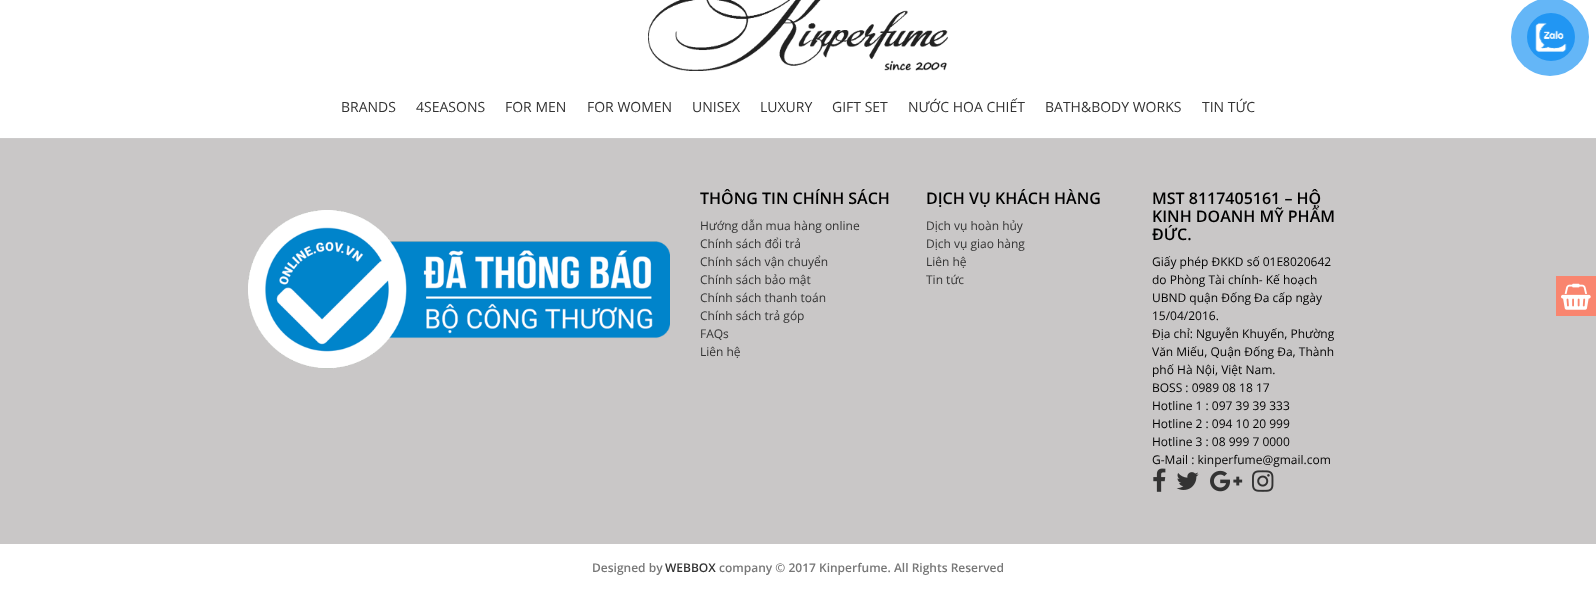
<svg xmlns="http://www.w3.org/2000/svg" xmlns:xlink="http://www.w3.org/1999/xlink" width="1596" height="592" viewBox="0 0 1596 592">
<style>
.cls-1{font:14px Open Sans;fill:#333333}
.cls-2{font:600 16px Open Sans;fill:#000000}
.cls-3{font:12px Open Sans;fill:#333333}
.cls-4{font:12px Open Sans;fill:#000000}
.cls-5{font:600 12px Open Sans;fill:#777777}
.cls-6{font:600 12px Open Sans;fill:#333333}
</style>
<rect width="100%" height="100%" fill="#ffffff"/>
<circle fill="#64b6f7" cx="1550" cy="37" r="39"/>
<circle fill="#2196f3" cx="1551" cy="37" r="24"/>
<image xlink:href="image0.png" x="1535" y="22" width="32" height="30"/>
<rect fill="#cccbcb" x="0" y="138" width="1596" height="1"/>
<image xlink:href="image1.png" x="648" y="0" width="300" height="71"/>
<rect fill="#c9c7c7" x="0" y="139" width="1596" height="405"/>
<image xlink:href="image2.png" x="248" y="210" width="422" height="159"/>
<image xlink:href="image3.png" x="1153" y="468" width="13" height="24"/>
<image xlink:href="image4.png" x="1176" y="472" width="23" height="18"/>
<image xlink:href="image5.png" x="1210" y="470" width="33" height="22"/>
<image xlink:href="image6.png" x="1252" y="470" width="22" height="22"/>
<rect fill="#f9856f" x="1556" y="276" width="40" height="40"/>
<image xlink:href="image7.png" x="1561" y="283" width="30" height="27"/>
<text class="cls-1" x="341" y="112">BRANDS</text>
<text class="cls-1" x="416" y="112">4SEASONS</text>
<text class="cls-1" x="505" y="112">FOR MEN</text>
<text class="cls-1" x="587" y="112">FOR WOMEN</text>
<text class="cls-1" x="692" y="112">UNISEX</text>
<text class="cls-1" x="760" y="112">LUXURY</text>
<text class="cls-1" x="832" y="112">GIFT SET</text>
<text class="cls-1" x="908" y="112">NƯỚC HOA CHIẾT</text>
<text class="cls-1" x="1045" y="112">BATH&amp;BODY WORKS</text>
<text class="cls-1" x="1202" y="112">TIN TỨC</text>
<text class="cls-2" x="700" y="204">THÔNG TIN CHÍNH SÁCH</text>
<text class="cls-3"><tspan x="700" y="230">Hướng dẫn mua hàng online</tspan><tspan x="700" y="248">Chính sách đổi trả</tspan><tspan x="700" y="266">Chính sách vận chuyển</tspan><tspan x="700" y="284">Chính sách bảo mật</tspan><tspan x="700" y="302">Chính sách thanh toán</tspan><tspan x="700" y="320">Chính sách trả góp</tspan><tspan x="700" y="338">FAQs</tspan><tspan x="700" y="356">Liên hệ</tspan></text>
<text class="cls-2" x="926" y="204">DỊCH VỤ KHÁCH HÀNG</text>
<text class="cls-3"><tspan x="926" y="230">Dịch vụ hoàn hủy</tspan><tspan x="926" y="248">Dịch vụ giao hàng</tspan><tspan x="926" y="266">Liên hệ</tspan><tspan x="926" y="284">Tin tức</tspan></text>
<text class="cls-2"><tspan x="1152" y="204">MST 8117405161 – HỘ</tspan><tspan x="1152" y="222">KINH DOANH MỸ PHẨM</tspan><tspan x="1152" y="240">ĐỨC.</tspan></text>
<text class="cls-4"><tspan x="1152" y="266">Giấy phép ĐKKD số 01E8020642</tspan><tspan x="1152" y="284">do Phòng Tài chính- Kế hoạch</tspan><tspan x="1152" y="302">UBND quận Đống Đa cấp ngày</tspan><tspan x="1152" y="320">15/04/2016.</tspan><tspan x="1152" y="338">Địa chỉ: Nguyễn Khuyến, Phường</tspan><tspan x="1152" y="356">Văn Miếu, Quận Đống Đa, Thành</tspan><tspan x="1152" y="374">phố Hà Nội, Việt Nam.</tspan><tspan x="1152" y="392">BOSS : 0989 08 18 17</tspan><tspan x="1152" y="410">Hotline 1 : 097 39 39 333</tspan><tspan x="1152" y="428">Hotline 2 : 094 10 20 999</tspan><tspan x="1152" y="446">Hotline 3 : 08 999 7 0000</tspan><tspan x="1152" y="464">G-Mail : kinperfume@gmail.com</tspan></text>
<text class="cls-5" x="592" y="572">Designed by</text>
<text class="cls-6" x="665" y="572">WEBBOX</text>
<text class="cls-5" x="719" y="572">company © 2017 Kinperfume. All Rights Reserved</text>
</svg>
